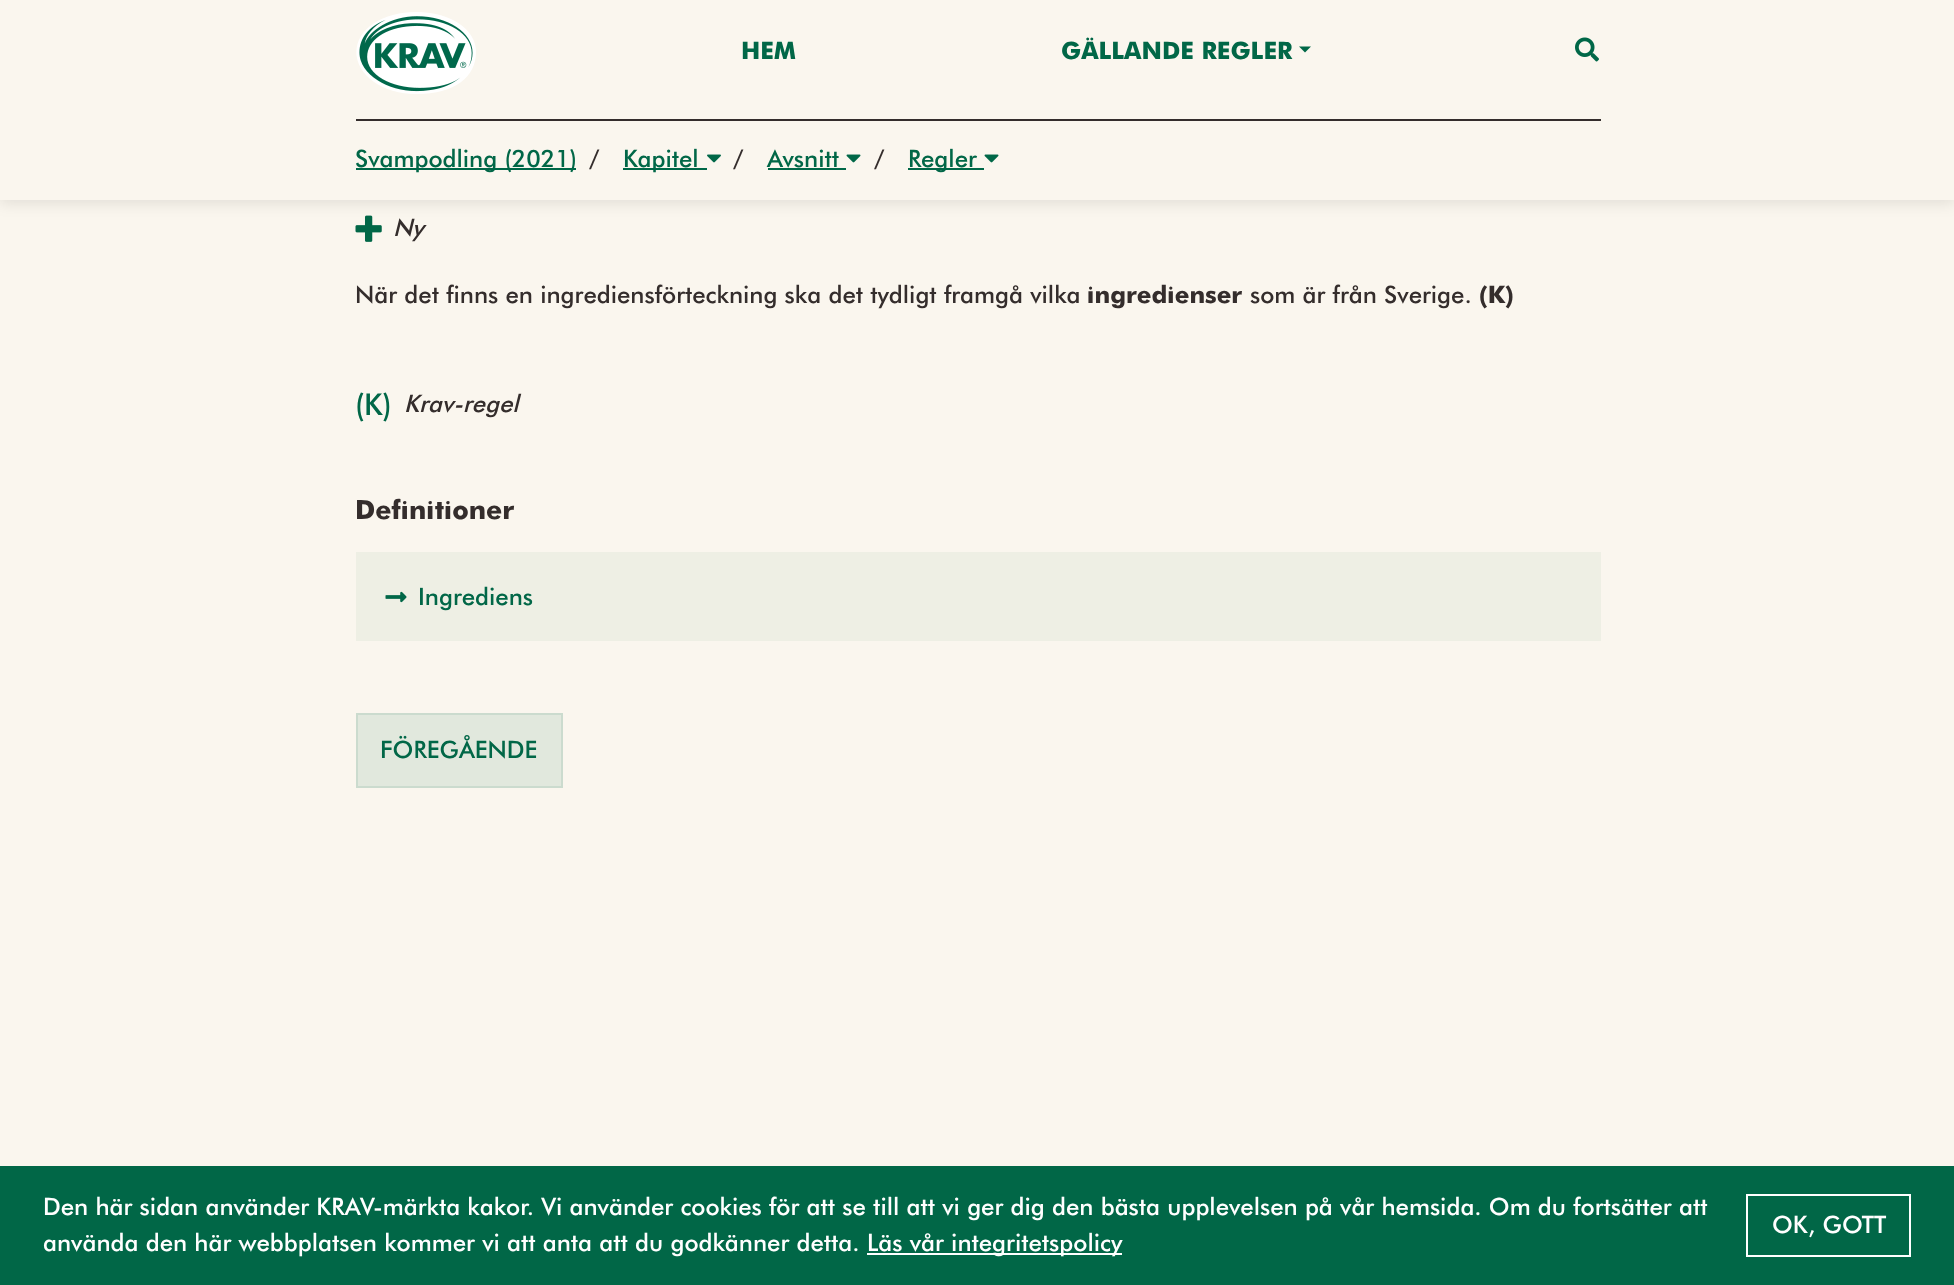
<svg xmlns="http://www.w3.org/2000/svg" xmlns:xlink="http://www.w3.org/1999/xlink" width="1954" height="1285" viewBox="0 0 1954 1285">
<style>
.cls-1{font:bold 24px Futura;fill:#016747}
.cls-2{font:500 24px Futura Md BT;fill:#016747}
.cls-3{font:500 24px Futura Md BT;fill:#342d2c}
.cls-4{font:italic 500 24px Futura Md BT;fill:#342d2c}
.cls-5{font:bold 24px Futura;fill:#342d2c}
.cls-6{font:500 30px Futura Md BT;fill:#016747}
.cls-7{font:bold 26.5px Futura;fill:#342d2c}
.cls-8{font:500 24px Futura Md BT;fill:#ffffff}
</style>
<rect width="100%" height="100%" fill="#faf6ee"/>
<image xlink:href="image4.png" x="355" y="215" width="27" height="27"/>
<rect fill="#000000" fill-opacity="0.1" filter="blur(7.5px)" x="0" y="3" width="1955" height="200"/>
<rect fill="#faf6ee" x="0" y="0" width="1954" height="200"/>
<rect fill="#342d2c" x="356" y="119" width="1245" height="2"/>
<image xlink:href="image0.png" x="356" y="12" width="120" height="82"/>
<path fill="#006747" d="M1299 46.5H1311L1305 52.5Z"/>
<image xlink:href="image1.png" x="1575" y="37" width="24" height="25"/>
<rect fill="#006747" x="356" y="168" width="220" height="2"/>
<rect fill="#006747" x="623" y="168" width="84" height="2"/>
<image xlink:href="image2.png" x="707" y="154" width="14" height="9"/>
<rect fill="#006747" x="768" y="168" width="78" height="2"/>
<image xlink:href="image3.png" x="846" y="154" width="15" height="9"/>
<rect fill="#006747" x="908" y="168" width="76" height="2"/>
<image xlink:href="image3.png" x="984" y="154" width="15" height="9"/>
<rect fill="#eeefe4" x="356" y="552" width="1245" height="89"/>
<image xlink:href="image5.png" x="385" y="591" width="22" height="12"/>
<rect fill="#e1e8dd" stroke="#cbdbce" stroke-width="2" x="357" y="714" width="205" height="73"/>
<rect fill="#016747" x="0" y="1166" width="1954" height="119"/>
<rect fill="#ffffff" x="867" y="1253" width="255" height="2"/>
<rect fill="none" stroke="#ffffff" stroke-width="2" x="1747" y="1195" width="163" height="61"/>
<text class="cls-1" x="741" y="59">HEM</text>
<text class="cls-1" x="1061" y="59">GÄLLANDE REGLER</text>
<text class="cls-2" x="355" y="167">Svampodling (2021)</text>
<text class="cls-3" x="589" y="167">/</text>
<text class="cls-2" x="623" y="167">Kapitel</text>
<text class="cls-3" x="733" y="167">/</text>
<text class="cls-2" x="767" y="167">Avsnitt</text>
<text class="cls-3" x="874" y="167">/</text>
<text class="cls-2" x="908" y="167">Regler</text>
<text class="cls-4" x="393" y="236">Ny</text>
<text class="cls-3" x="355" y="303">När det finns en ingrediensförteckning ska det tydligt framgå vilka</text>
<text class="cls-5" x="1087" y="303">ingredienser</text>
<text class="cls-3" x="1250" y="303">som är från Sverige.</text>
<text class="cls-5" x="1479" y="303">(K)</text>
<text class="cls-6" x="355" y="415">(K)</text>
<text class="cls-4" x="404" y="412">Krav-regel</text>
<text class="cls-7" x="355" y="519">Definitioner</text>
<text class="cls-2" x="418" y="605">Ingrediens</text>
<text class="cls-2" x="380" y="758">FÖREGÅENDE</text>
<text class="cls-8"><tspan x="43" y="1215">Den här sidan använder KRAV-märkta kakor. Vi använder cookies för att se till att vi ger dig den bästa upplevelsen på vår hemsida. Om du fortsätter att</tspan><tspan x="43" y="1251">använda den här webbplatsen kommer vi att anta att du godkänner detta.</tspan></text>
<text class="cls-8" x="867" y="1251">Läs vår integritetspolicy</text>
<text class="cls-8" x="1772" y="1233">OK, GOTT</text>
</svg>
